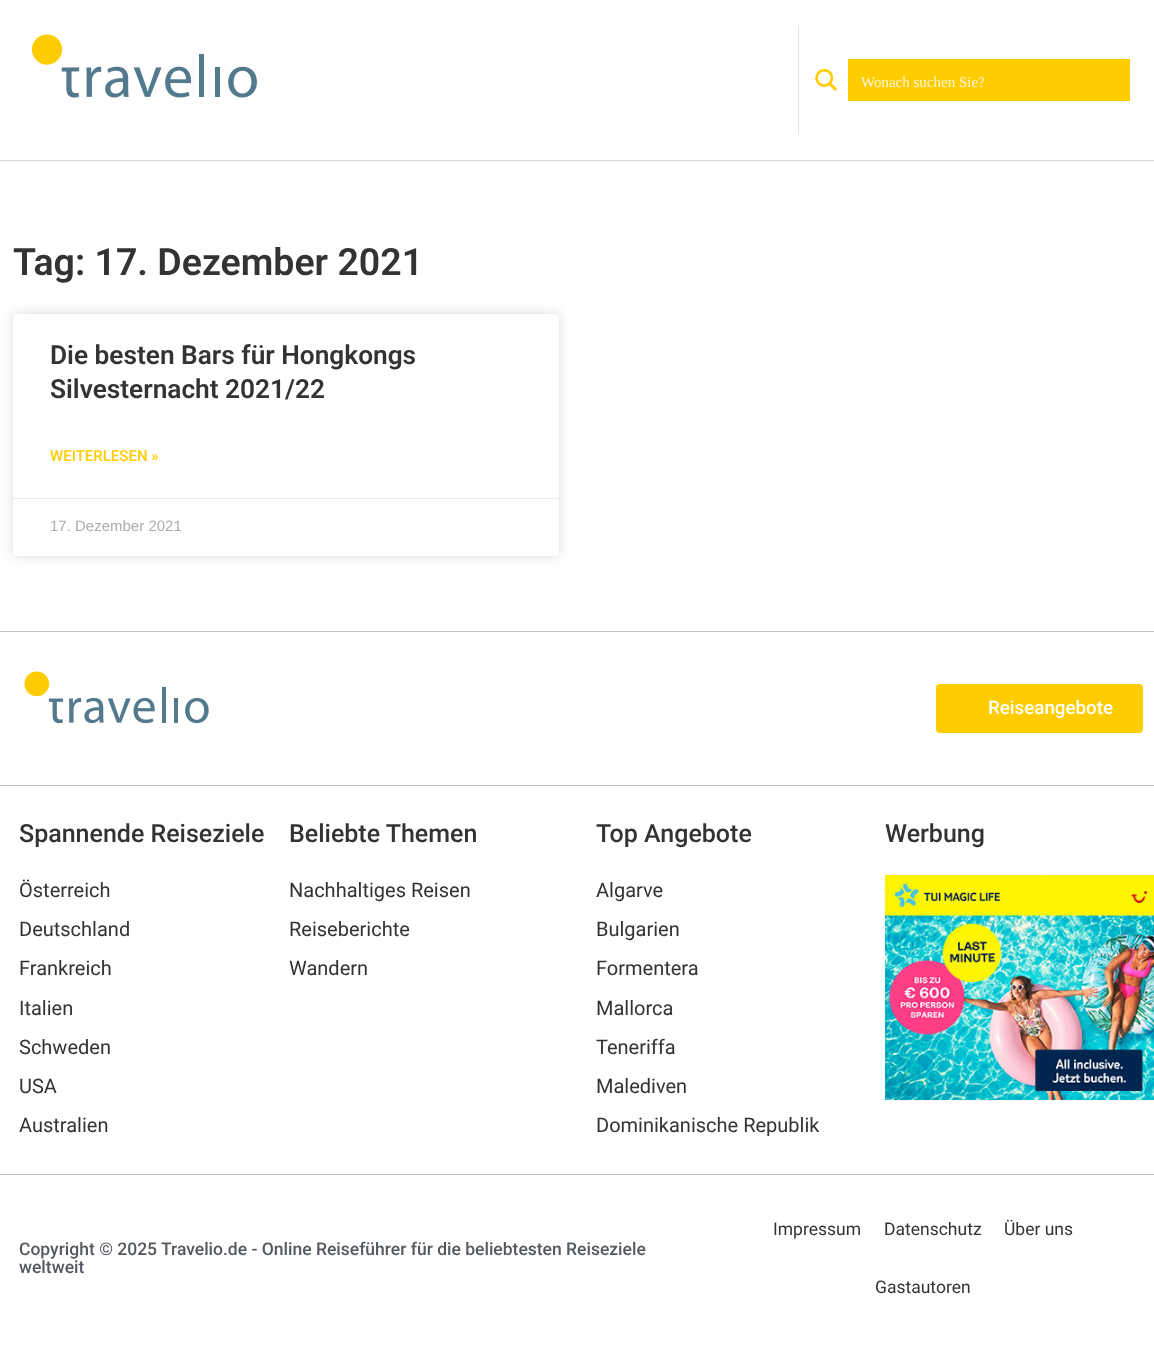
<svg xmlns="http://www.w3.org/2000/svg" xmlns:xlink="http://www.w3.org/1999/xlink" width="1154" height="1370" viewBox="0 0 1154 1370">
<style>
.cls-1{font:15px Liberation Serif;fill:#fff7d9}
.cls-2{font:600 37.5px Roboto;fill:#333333}
.cls-3{font:600 26.25px Roboto;fill:#333333}
.cls-4{font:500 15px Roboto;fill:#ffcc00}
.cls-5{font:15px Liberation Sans;fill:#adadad}
.cls-6{font:500 18.75px Roboto;fill:#ffffff}
.cls-7{font:500 25px Roboto;fill:#333333}
.cls-8{font:20px Roboto;fill:#333333}
.cls-9{font:500 17.5px Roboto;fill:#54595f}
.cls-10{font:17.5px Roboto;fill:#333333}
</style>
<rect width="100%" height="100%" fill="#ffffff"/>
<rect fill="#d6d6d6" x="0" y="160" width="1154" height="1"/>
<image xlink:href="image0.png" x="31" y="34" width="226" height="64"/>
<rect fill="#e1e1e1" x="798" y="25" width="1" height="110"/>
<rect fill="#ffcc00" x="848" y="59" width="282" height="42"/>
<image xlink:href="image1.png" x="815" y="68" width="23" height="23"/>
<rect fill="#000000" fill-opacity="0.15" filter="blur(6px)" x="13" y="314" width="546" height="242" rx="4"/>
<rect fill="#ffffff" x="13" y="314" width="546" height="242" rx="4"/>
<rect fill="#eaeaea" x="13" y="498" width="546" height="1"/>
<rect fill="#bfbfbf" x="0" y="631" width="1154" height="1"/>
<image xlink:href="image2.png" x="24" y="671" width="185" height="53"/>
<rect fill="#ffcc00" x="936" y="684" width="207" height="49" rx="4"/>
<rect fill="#bfbfbf" x="0" y="785" width="1154" height="1"/>
<image xlink:href="image3.png" x="885" y="875" width="269" height="225"/>
<rect fill="#bfbfbf" x="0" y="1174" width="1154" height="1"/>
<text class="cls-1" x="861" y="87">Wonach suchen Sie?</text>
<text class="cls-2" x="13" y="275">Tag: 17. Dezember 2021</text>
<text class="cls-3"><tspan x="50" y="364">Die besten Bars für Hongkongs</tspan><tspan x="50" y="398">Silvesternacht 2021/22</tspan></text>
<text class="cls-4" x="50" y="461">WEITERLESEN »</text>
<text class="cls-5" x="50" y="531">17. Dezember 2021</text>
<text class="cls-6" x="988" y="714">Reiseangebote</text>
<text class="cls-7" x="19" y="842">Spannende Reiseziele</text>
<text class="cls-8"><tspan x="19" y="897">Österreich</tspan><tspan x="19" y="936">Deutschland</tspan><tspan x="19" y="975">Frankreich</tspan></text>
<text class="cls-8"><tspan x="19" y="1015">Italien</tspan><tspan x="19" y="1054">Schweden</tspan><tspan x="19" y="1093">USA</tspan><tspan x="19" y="1132">Australien</tspan></text>
<text class="cls-7" x="289" y="842">Beliebte Themen</text>
<text class="cls-8"><tspan x="289" y="897">Nachhaltiges Reisen</tspan><tspan x="289" y="936">Reiseberichte</tspan><tspan x="289" y="975">Wandern</tspan></text>
<text class="cls-7" x="596" y="842">Top Angebote</text>
<text class="cls-8"><tspan x="596" y="897">Algarve</tspan><tspan x="596" y="936">Bulgarien</tspan><tspan x="596" y="975">Formentera</tspan></text>
<text class="cls-8"><tspan x="596" y="1015">Mallorca</tspan><tspan x="596" y="1054">Teneriffa</tspan><tspan x="596" y="1093">Malediven</tspan><tspan x="596" y="1132">Dominikanische Republik</tspan></text>
<text class="cls-7" x="885" y="842">Werbung</text>
<text class="cls-9"><tspan x="19" y="1255">Copyright © 2025 Travelio.de - Online Reiseführer für die beliebtesten Reiseziele</tspan><tspan x="19" y="1273">weltweit</tspan></text>
<text class="cls-10" x="773" y="1235">Impressum</text>
<text class="cls-10" x="884" y="1235">Datenschutz</text>
<text class="cls-10" x="1004" y="1235">Über uns</text>
<text class="cls-10" x="875" y="1293">Gastautoren</text>
</svg>
